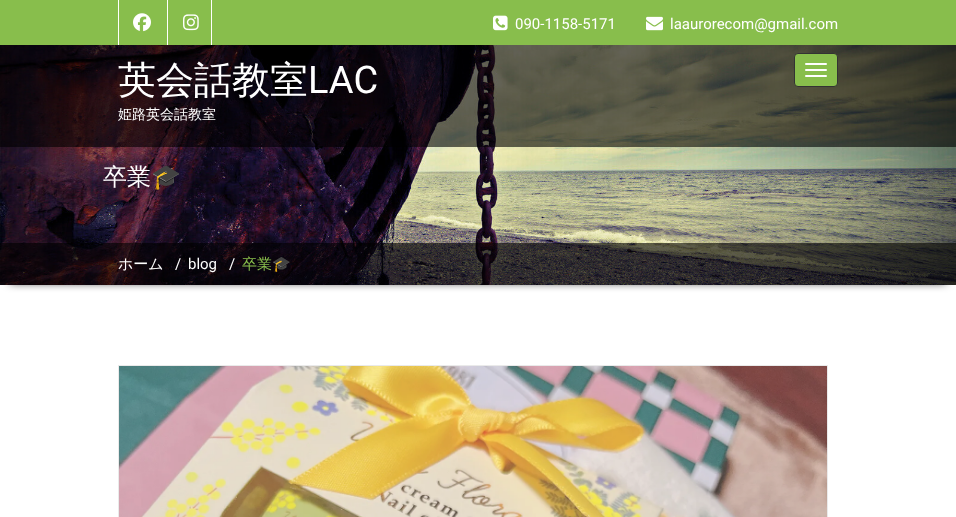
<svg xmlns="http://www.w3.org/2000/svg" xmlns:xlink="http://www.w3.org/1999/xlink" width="956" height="517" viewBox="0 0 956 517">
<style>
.cls-1{font:15px Roboto;fill:#ffffff}
.cls-2{font:500 38px WenQuanYi Zen Hei;fill:#ffffff}
.cls-3{font:38px Roboto;fill:#ffffff}
.cls-4{font:500 14px WenQuanYi Zen Hei;fill:#ffffff}
.cls-5{font:500 24px WenQuanYi Zen Hei;fill:#ffffff}
.cls-6{font:24px Noto Color Emoji;fill:#ffffff}
.cls-7{font:500 15px WenQuanYi Zen Hei;fill:#ffffff}
.cls-8{font:500 15px WenQuanYi Zen Hei;fill:#88be4c}
.cls-9{font:15px Noto Color Emoji;fill:#88be4c}
</style>
<rect width="100%" height="100%" fill="#ffffff"/>
<rect fill="#88be4c" x="0" y="0" width="956" height="45"/>
<rect fill="#ffffff" x="118" y="0" width="1" height="45"/>
<image xlink:href="image0.png" x="133" y="13" width="18" height="19"/>
<rect fill="#ffffff" x="211" y="0" width="1" height="45"/>
<rect fill="#ffffff" x="167" y="0" width="1" height="45"/>
<image xlink:href="image1.png" x="183" y="14" width="16" height="17"/>
<image xlink:href="image2.png" x="493" y="15" width="15" height="16"/>
<image xlink:href="image3.png" x="646" y="16" width="17" height="15"/>
<rect fill="#000000" filter="blur(5px)" x="10" y="62" width="936" height="220"/>
<image xlink:href="image4.png" x="0" y="45" width="956" height="240"/>
<rect fill="#000000" fill-opacity="0.6" x="0" y="45" width="956" height="102"/>
<rect fill="#88be4c" stroke="#333333" x="794.5" y="53.5" width="43" height="33" rx="3.5"/>
<rect fill="#ffffff" x="805" y="63" width="22" height="2" rx="1"/>
<rect fill="#ffffff" x="805" y="69" width="22" height="2" rx="1"/>
<rect fill="#ffffff" x="805" y="75" width="22" height="2" rx="1"/>
<rect fill="#000000" fill-opacity="0.6" x="0" y="243" width="956" height="42"/>
<rect fill="none" stroke="#eaeaea" x="118.5" y="365.5" width="709" height="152"/>
<image xlink:href="image5.png" x="119" y="366" width="708" height="151"/>
<text class="cls-1" x="515" y="29">090-1158-5171</text>
<text class="cls-1" x="670" y="29">laaurorecom@gmail.com</text>
<text class="cls-2" x="118" y="93">英会話教室</text>
<text class="cls-3" x="308" y="93">LAC</text>
<text class="cls-4" x="118" y="119">姫路英会話教室</text>
<text class="cls-5" x="103" y="185">卒業</text>
<text class="cls-6" x="151" y="185">🎓</text>
<text class="cls-7" x="118" y="269">ホーム</text>
<text class="cls-1" x="175" y="269">/</text>
<text class="cls-1" x="188" y="269">blog</text>
<text class="cls-1" x="229" y="269">/</text>
<text class="cls-8" x="242" y="269">卒業</text>
<text class="cls-9" x="272" y="269">🎓</text>
</svg>
